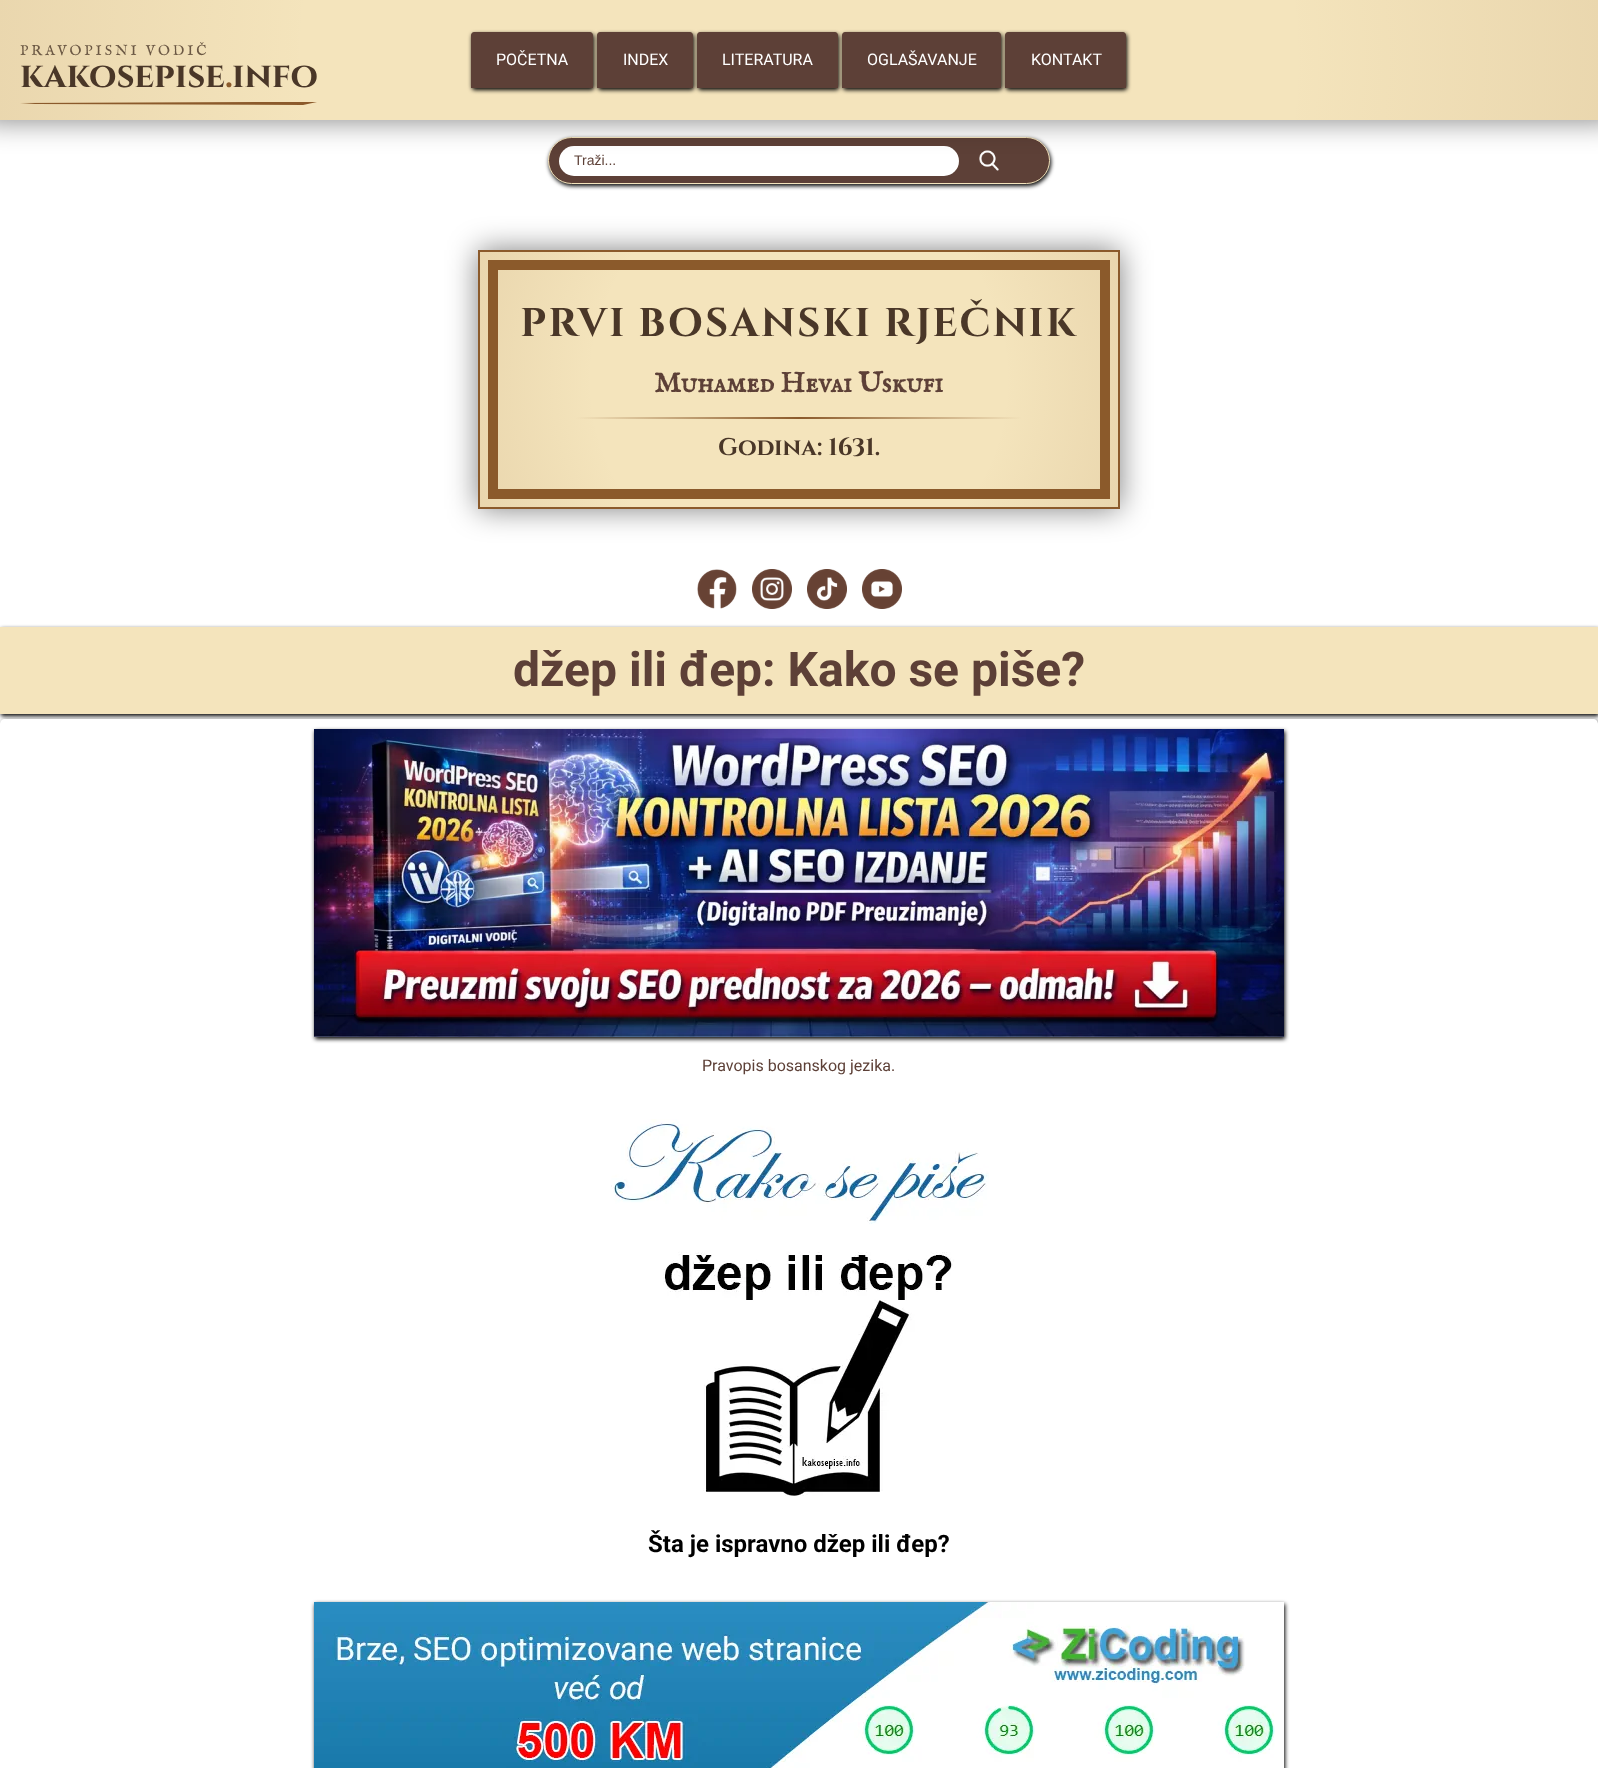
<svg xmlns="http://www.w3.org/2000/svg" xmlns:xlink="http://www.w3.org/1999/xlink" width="1598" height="1768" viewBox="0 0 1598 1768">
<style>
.cls-1{font:14.4px IM FELL English SC;letter-spacing:3px;fill:#6b5844}
.cls-2{font:bold 35.25px Cinzel;fill:#4a3728}
.cls-3{font:bold 35.25px Cinzel;fill:#8b5a2b}
.cls-4{font:16px Roboto;fill:#ffffff}
.cls-5{font:14px Liberation Sans;fill:#5d4037}
.cls-6{font:bold 40px Cinzel;letter-spacing:2px;fill:#4a3728}
.cls-7{font:bold 28.75px IM FELL English SC;fill:#5d4037}
.cls-8{font:bold 24px Cinzel;fill:#4a3728}
.cls-9{font:bold 48px Roboto;fill:#5d4037}
.cls-10{font:16px Roboto;fill:#5d4037}
.cls-11{font:bold 24px Roboto;fill:#000000}
</style>
<defs>
<radialGradient id="g1" gradientUnits="userSpaceOnUse" cx="799" cy="60" r="821"><stop offset="0.6" stop-color="#8b5a2b" stop-opacity="0"/><stop offset="1" stop-color="#8b5a2b" stop-opacity="0.1"/></radialGradient>
<linearGradient id="g2" gradientUnits="userSpaceOnUse" x1="576" y1="418" x2="1022" y2="418"><stop offset="0" stop-color="#f4e4bc"/><stop offset="0.5" stop-color="#8b5a2b"/><stop offset="1" stop-color="#f4e4bc"/></linearGradient>
<radialGradient id="g3" gradientUnits="userSpaceOnUse" cx="799" cy="380" r="344"><stop offset="0.6" stop-color="#8b5a2b" stop-opacity="0"/><stop offset="1" stop-color="#8b5a2b" stop-opacity="0.1"/></radialGradient>
<clipPath id="clip1"><path d="M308 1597H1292V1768H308ZM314 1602H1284V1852H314Z" clip-rule="evenodd"/></clipPath>
</defs>
<rect width="100%" height="100%" fill="#ffffff"/>
<rect fill="#000000" filter="blur(2px)" x="549" y="139" width="502" height="47" rx="23.5"/>
<rect fill="#5d4037" stroke="#f4e4bc" x="548.5" y="137.5" width="501" height="46" rx="23"/>
<rect fill="#ffffff" x="559" y="146" width="400" height="30" rx="15"/>
<image xlink:href="image0.png" x="979" y="150" width="20" height="21"/>
<rect fill="#000000" fill-opacity="0.5" filter="blur(15px)" x="-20" y="0" width="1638" height="120"/>
<rect fill="#f4e4bc" x="0" y="0" width="1598" height="120"/>
<rect fill="url(#g1)" x="0" y="0" width="1598" height="120"/>
<path fill="#8b5a2b" d="M20 103L35 104L303 105L317 102H260Z"/>
<rect fill="#000000" filter="blur(2px)" x="472" y="34" width="122" height="56" rx="3"/>
<path fill="#5d4037" d="M474 32H590C591.5 32 593 33.5 593 35V88H471V35C471 33.5 472.5 32 474 32Z"/>
<rect fill="#000000" filter="blur(2px)" x="598" y="34" width="96" height="56" rx="3"/>
<path fill="#5d4037" d="M600 32H690C691.5 32 693 33.5 693 35V88H597V35C597 33.5 598.5 32 600 32Z"/>
<rect fill="#000000" filter="blur(2px)" x="698" y="34" width="141" height="56" rx="3"/>
<path fill="#5d4037" d="M700 32H835C836.5 32 838 33.5 838 35V88H697V35C697 33.5 698.5 32 700 32Z"/>
<rect fill="#000000" filter="blur(2px)" x="843" y="34" width="159" height="56" rx="3"/>
<path fill="#5d4037" d="M845 32H998C999.5 32 1001 33.5 1001 35V88H842V35C842 33.5 843.5 32 845 32Z"/>
<rect fill="#000000" filter="blur(2px)" x="1006" y="34" width="121" height="56" rx="3"/>
<path fill="#5d4037" d="M1008 32H1123C1124.5 32 1126 33.5 1126 35V88H1005V35C1005 33.5 1006.5 32 1008 32Z"/>
<rect fill="#000000" fill-opacity="0.5" filter="blur(15px)" x="478" y="250" width="642" height="259"/>
<rect fill="#f4e4bc" stroke="#8b5a2b" stroke-width="2" x="479" y="251" width="640" height="257"/>
<rect fill="none" stroke="#8b5a2b" stroke-width="10" x="493" y="265" width="612" height="229"/>
<rect fill="url(#g2)" x="576" y="417" width="446" height="2"/>
<rect fill="url(#g3)" x="480" y="252" width="638" height="255"/>
<image xlink:href="image1.png" x="697" y="569" width="40" height="40"/>
<image xlink:href="image2.png" x="752" y="569" width="40" height="40"/>
<image xlink:href="image3.png" x="807" y="569" width="40" height="40"/>
<image xlink:href="image4.png" x="862" y="569" width="40" height="40"/>
<rect fill="#000000" filter="blur(2px)" x="1" y="629" width="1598" height="87"/>
<rect fill="#f4e4bc" x="0" y="627" width="1598" height="87"/>
<rect fill="#000000" filter="blur(2px)" x="1" y="721" width="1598" height="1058" rx="5"/>
<path fill="#ffffff" d="M5 719H1593C1596 719 1598 721 1598 724V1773H0V724C0 721 2 719 5 719Z"/>
<rect fill="#000000" filter="blur(2px)" x="315" y="731" width="970" height="308"/>
<image xlink:href="image5.png" x="314" y="729" width="970" height="308"/>
<image xlink:href="image6.png" x="611" y="1119" width="378" height="377"/>
<g clip-path="url(#clip1)">
<rect fill="#000000" filter="blur(2px)" x="315" y="1604" width="970" height="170"/>
</g>
<image xlink:href="image7.png" x="314" y="1602" width="961" height="166"/>
<text class="cls-1" x="20" y="55">PRAVOPISNI VODIČ</text>
<text class="cls-2" x="20" y="87">kakosepise</text>
<text class="cls-3" x="225" y="87">.</text>
<text class="cls-2" x="232" y="87">info</text>
<text class="cls-4" x="496" y="65">POČETNA</text>
<text class="cls-4" x="623" y="65">INDEX</text>
<text class="cls-4" x="722" y="65">LITERATURA</text>
<text class="cls-4" x="867" y="65">OGLAŠAVANJE</text>
<text class="cls-4" x="1031" y="65">KONTAKT</text>
<text class="cls-5" x="574" y="165">Traži...</text>
<text class="cls-6" x="520" y="336">PRVI BOSANSKI RJEČNIK</text>
<text class="cls-7" x="654" y="392">Muhamed Hevai Uskufi</text>
<text class="cls-8" x="718" y="455">Godina: 1631.</text>
<text class="cls-9" x="513" y="686">džep ili đep: Kako se piše?</text>
<text class="cls-10" x="702" y="1071">Pravopis bosanskog jezika.</text>
<text class="cls-11" x="648" y="1552">Šta je ispravno džep ili đep?</text>
</svg>
